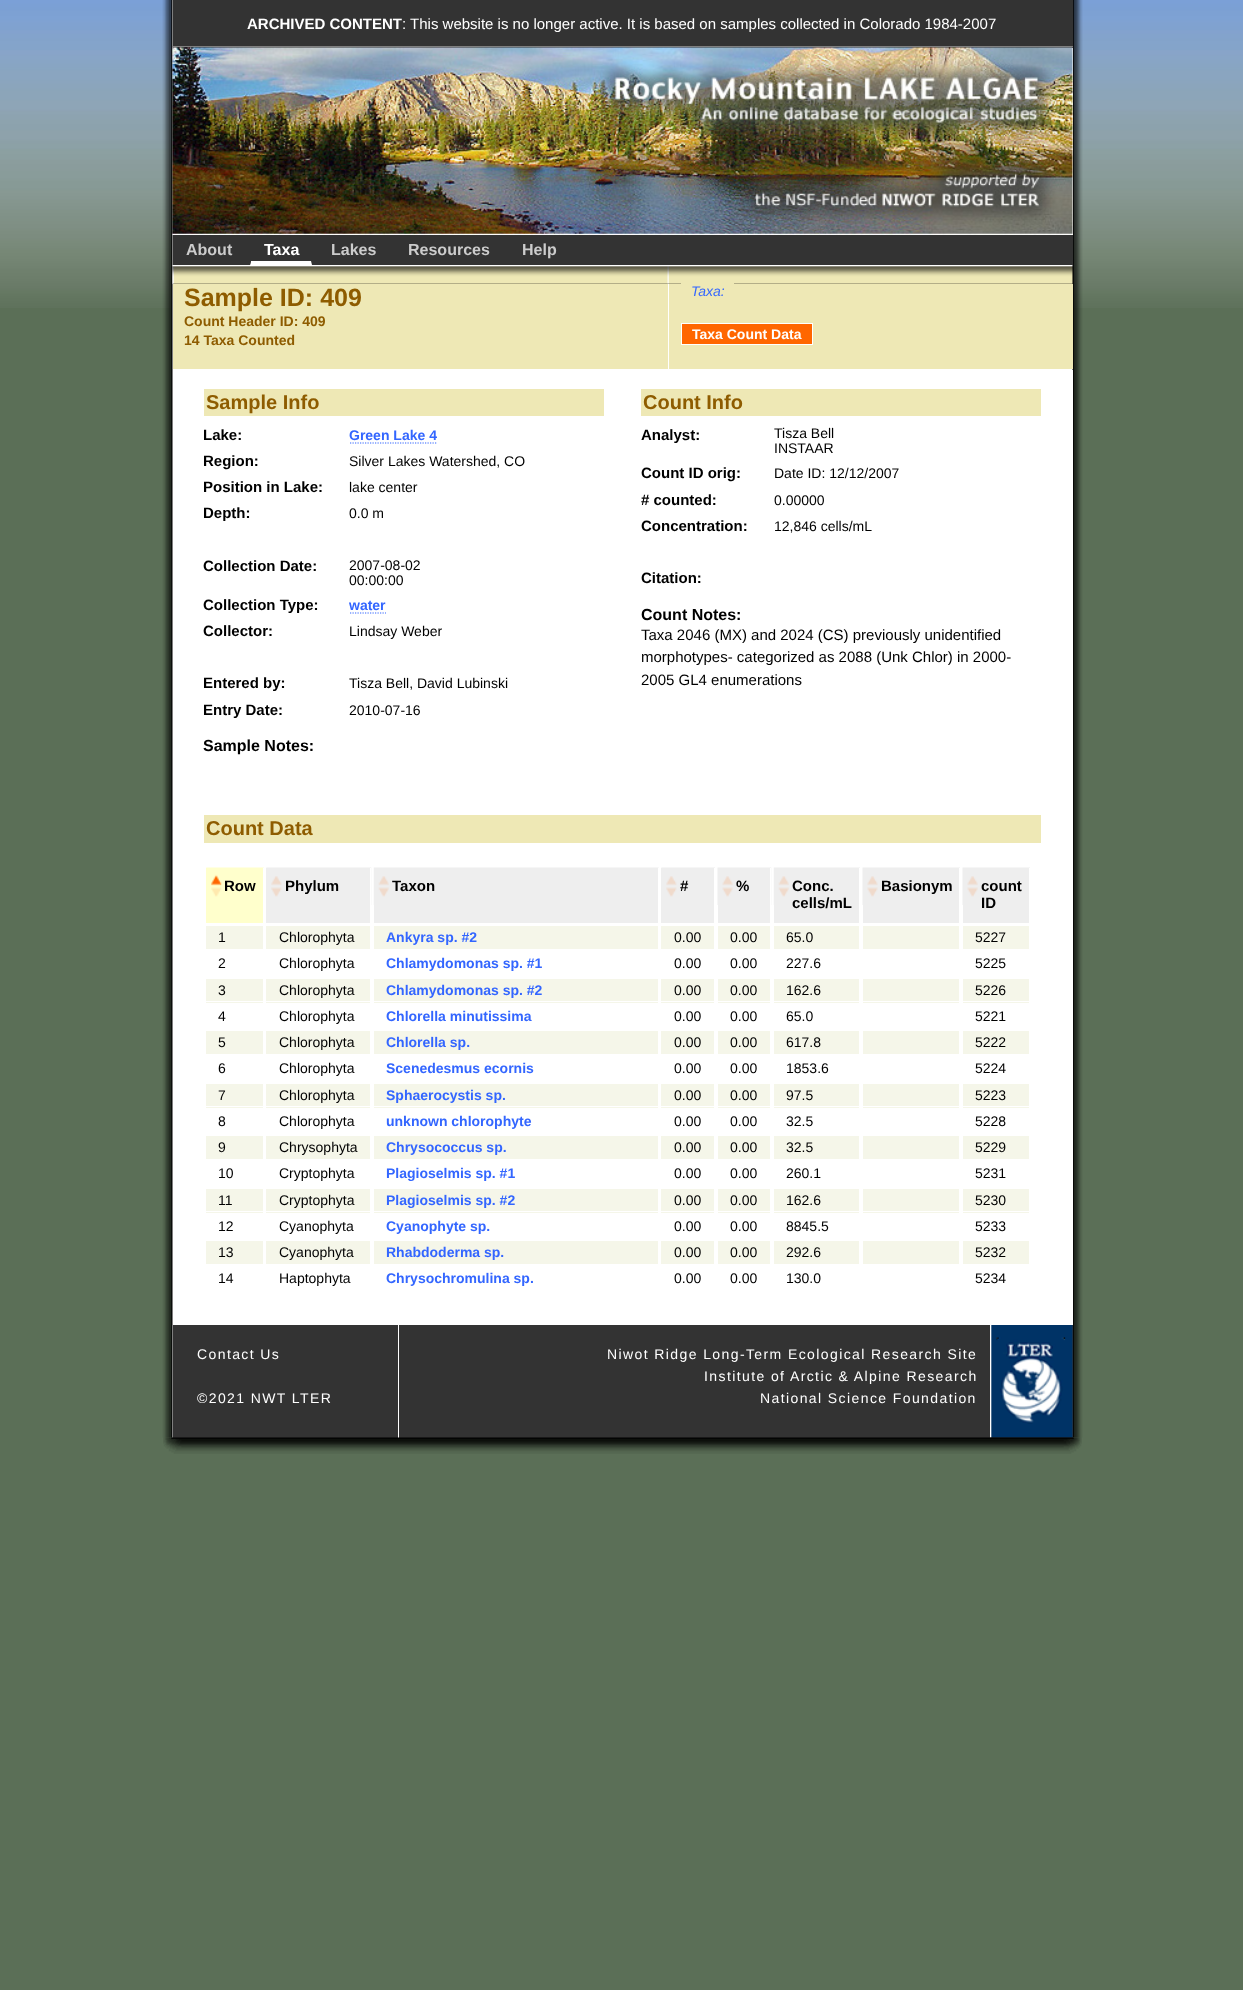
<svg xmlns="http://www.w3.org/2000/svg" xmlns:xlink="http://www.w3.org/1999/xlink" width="1243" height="1990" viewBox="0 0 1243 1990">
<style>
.cls-1{font:bold 15px Liberation Sans;fill:#ffffff}
.cls-2{font:15px Liberation Sans;fill:#ffffff}
.cls-3{font:bold 16px Liberation Sans;fill:#cccccc}
.cls-4{font:bold 16px Liberation Sans;fill:#ffffff}
.cls-5{font:bold 25px Liberation Sans;fill:#8e5c00}
.cls-6{font:bold 14px Liberation Sans;fill:#8e5c00}
.cls-7{font:italic 14px Liberation Sans;fill:#3366ff}
.cls-8{font:bold 14px Liberation Sans;fill:#ffffff}
.cls-9{font:bold 20px Liberation Sans;fill:#8e5c00}
.cls-10{font:bold 15px Liberation Sans;fill:#000000}
.cls-11{font:bold 14px Liberation Sans;fill:#3366ff}
.cls-12{font:14px Liberation Sans;fill:#000000}
.cls-13{font:bold 16px Liberation Sans;fill:#000000}
.cls-14{font:15px Liberation Sans;fill:#000000}
.cls-15{font:14px Liberation Sans;letter-spacing:1.4px;fill:#ffffff}
</style>
<rect width="100%" height="100%" fill="#5b6f57"/>
<image xlink:href="image0.png" x="0" y="0" width="1243" height="308"/>
<image xlink:href="image1.png" x="162" y="0" width="921" height="1438"/>
<rect fill="#333333" x="173" y="0" width="900" height="48"/>
<rect fill="#808080" x="173" y="46" width="900" height="1"/>
<rect fill="#ffffff" x="1072" y="48" width="1" height="187"/>
<image xlink:href="image2.png" x="172" y="47" width="901" height="188"/>
<rect fill="#333333" x="173" y="235" width="900" height="30"/>
<path fill="#ffffff" d="M312 265H250L251 261H311Z"/>
<path fill="#333333" d="M250 265V235H251V261Z"/>
<rect fill="#000000" x="173" y="265" width="900" height="19"/>
<image xlink:href="image3.png" x="172" y="265" width="901" height="19"/>
<rect fill="#eee8b5" x="173" y="284" width="900" height="85"/>
<rect fill="#ffffff" x="668" y="284" width="1" height="85"/>
<rect fill="#eee8b5" x="681" y="283" width="53" height="1"/>
<rect fill="#ff6600" stroke="#ffffff" x="681.5" y="323.5" width="131" height="21"/>
<rect fill="#ffffff" x="1072" y="370" width="1" height="955"/>
<rect fill="#eee8b5" x="204" y="389" width="400" height="27"/>
<path fill="none" stroke="#3366ff" stroke-width="1.2" stroke-dasharray="1.25 1.25" d="M350 443H437.5"/>
<path fill="none" stroke="#3366ff" stroke-width="1.2" stroke-dasharray="1.25 1.25" d="M350 613H386"/>
<rect fill="#eee8b5" x="641" y="389" width="400" height="27"/>
<rect fill="#eee8b5" x="204" y="815" width="837" height="28"/>
<rect fill="#ffffcc" x="206" y="868" width="57" height="55"/>
<image xlink:href="image4.png" x="206" y="867" width="58" height="30"/>
<rect fill="#ffffff" x="263" y="868" width="1" height="29"/>
<rect fill="#eeeeee" x="266" y="868" width="104" height="55"/>
<image xlink:href="image5.png" x="266" y="867" width="106" height="38"/>
<rect fill="#ffffff" x="370" y="868" width="1" height="37"/>
<rect fill="#eeeeee" x="374" y="905" width="284" height="18"/>
<image xlink:href="image6.png" x="373" y="867" width="286" height="38"/>
<rect fill="#ffffff" x="658" y="868" width="1" height="37"/>
<rect fill="#eeeeee" x="661" y="868" width="53" height="55"/>
<image xlink:href="image7.png" x="661" y="867" width="54" height="30"/>
<rect fill="#ffffff" x="714" y="868" width="1" height="29"/>
<rect fill="#eeeeee" x="718" y="905" width="52" height="18"/>
<image xlink:href="image8.png" x="717" y="867" width="55" height="38"/>
<rect fill="#ffffff" x="770" y="868" width="1" height="37"/>
<rect fill="#eeeeee" x="774" y="905" width="85" height="18"/>
<image xlink:href="image9.png" x="773" y="867" width="87" height="38"/>
<rect fill="#ffffff" x="859" y="868" width="1" height="37"/>
<rect fill="#eeeeee" x="863" y="905" width="96" height="18"/>
<image xlink:href="image10.png" x="862" y="867" width="98" height="38"/>
<rect fill="#ffffff" x="959" y="868" width="1" height="37"/>
<rect fill="#eeeeee" x="963" y="905" width="66" height="18"/>
<image xlink:href="image11.png" x="962" y="867" width="68" height="38"/>
<rect fill="#ffffff" x="1029" y="868" width="1" height="37"/>
<rect fill="#f5f6e9" x="206" y="926" width="57" height="23"/>
<rect fill="#f5f6e9" x="266" y="926" width="104" height="23"/>
<rect fill="#f5f6e9" x="374" y="926" width="284" height="23"/>
<rect fill="#f5f6e9" x="661" y="926" width="53" height="23"/>
<rect fill="#f5f6e9" x="718" y="926" width="52" height="23"/>
<rect fill="#f5f6e9" x="774" y="926" width="85" height="23"/>
<rect fill="#f5f6e9" x="863" y="926" width="96" height="23"/>
<rect fill="#f5f6e9" x="963" y="926" width="66" height="23"/>
<rect fill="#f5f6e9" x="206" y="979" width="57" height="24"/>
<rect fill="#ffffff" x="206" y="1001" width="58" height="1"/>
<rect fill="#f5f6e9" x="266" y="979" width="104" height="24"/>
<rect fill="#ffffff" x="266" y="1001" width="105" height="1"/>
<rect fill="#f5f6e9" x="374" y="979" width="284" height="24"/>
<rect fill="#ffffff" x="374" y="1001" width="285" height="1"/>
<rect fill="#f5f6e9" x="661" y="979" width="53" height="24"/>
<rect fill="#ffffff" x="661" y="1001" width="54" height="1"/>
<rect fill="#f5f6e9" x="718" y="979" width="52" height="24"/>
<rect fill="#ffffff" x="718" y="1001" width="53" height="1"/>
<rect fill="#f5f6e9" x="774" y="979" width="85" height="24"/>
<rect fill="#ffffff" x="774" y="1001" width="86" height="1"/>
<rect fill="#f5f6e9" x="863" y="979" width="96" height="24"/>
<rect fill="#ffffff" x="863" y="1001" width="97" height="1"/>
<rect fill="#f5f6e9" x="963" y="979" width="66" height="24"/>
<rect fill="#ffffff" x="963" y="1001" width="67" height="1"/>
<rect fill="#f5f6e9" x="206" y="1031" width="57" height="23"/>
<rect fill="#f5f6e9" x="266" y="1031" width="104" height="23"/>
<rect fill="#f5f6e9" x="374" y="1031" width="284" height="23"/>
<rect fill="#f5f6e9" x="661" y="1031" width="53" height="23"/>
<rect fill="#f5f6e9" x="718" y="1031" width="52" height="23"/>
<rect fill="#f5f6e9" x="774" y="1031" width="85" height="23"/>
<rect fill="#f5f6e9" x="863" y="1031" width="96" height="23"/>
<rect fill="#f5f6e9" x="963" y="1031" width="66" height="23"/>
<rect fill="#f5f6e9" x="206" y="1084" width="57" height="24"/>
<rect fill="#ffffff" x="206" y="1106" width="58" height="1"/>
<rect fill="#f5f6e9" x="266" y="1084" width="104" height="24"/>
<rect fill="#ffffff" x="266" y="1106" width="105" height="1"/>
<rect fill="#f5f6e9" x="374" y="1084" width="284" height="24"/>
<rect fill="#ffffff" x="374" y="1106" width="285" height="1"/>
<rect fill="#f5f6e9" x="661" y="1084" width="53" height="24"/>
<rect fill="#ffffff" x="661" y="1106" width="54" height="1"/>
<rect fill="#f5f6e9" x="718" y="1084" width="52" height="24"/>
<rect fill="#ffffff" x="718" y="1106" width="53" height="1"/>
<rect fill="#f5f6e9" x="774" y="1084" width="85" height="24"/>
<rect fill="#ffffff" x="774" y="1106" width="86" height="1"/>
<rect fill="#f5f6e9" x="863" y="1084" width="96" height="24"/>
<rect fill="#ffffff" x="863" y="1106" width="97" height="1"/>
<rect fill="#f5f6e9" x="963" y="1084" width="66" height="24"/>
<rect fill="#ffffff" x="963" y="1106" width="67" height="1"/>
<rect fill="#f5f6e9" x="206" y="1136" width="57" height="23"/>
<rect fill="#f5f6e9" x="266" y="1136" width="104" height="23"/>
<rect fill="#f5f6e9" x="374" y="1136" width="284" height="23"/>
<rect fill="#f5f6e9" x="661" y="1136" width="53" height="23"/>
<rect fill="#f5f6e9" x="718" y="1136" width="52" height="23"/>
<rect fill="#f5f6e9" x="774" y="1136" width="85" height="23"/>
<rect fill="#f5f6e9" x="863" y="1136" width="96" height="23"/>
<rect fill="#f5f6e9" x="963" y="1136" width="66" height="23"/>
<rect fill="#f5f6e9" x="206" y="1189" width="57" height="24"/>
<rect fill="#ffffff" x="206" y="1211" width="58" height="1"/>
<rect fill="#f5f6e9" x="266" y="1189" width="104" height="24"/>
<rect fill="#ffffff" x="266" y="1211" width="105" height="1"/>
<rect fill="#f5f6e9" x="374" y="1189" width="284" height="24"/>
<rect fill="#ffffff" x="374" y="1211" width="285" height="1"/>
<rect fill="#f5f6e9" x="661" y="1189" width="53" height="24"/>
<rect fill="#ffffff" x="661" y="1211" width="54" height="1"/>
<rect fill="#f5f6e9" x="718" y="1189" width="52" height="24"/>
<rect fill="#ffffff" x="718" y="1211" width="53" height="1"/>
<rect fill="#f5f6e9" x="774" y="1189" width="85" height="24"/>
<rect fill="#ffffff" x="774" y="1211" width="86" height="1"/>
<rect fill="#f5f6e9" x="863" y="1189" width="96" height="24"/>
<rect fill="#ffffff" x="863" y="1211" width="97" height="1"/>
<rect fill="#f5f6e9" x="963" y="1189" width="66" height="24"/>
<rect fill="#ffffff" x="963" y="1211" width="67" height="1"/>
<rect fill="#f5f6e9" x="206" y="1241" width="57" height="23"/>
<rect fill="#f5f6e9" x="266" y="1241" width="104" height="23"/>
<rect fill="#f5f6e9" x="374" y="1241" width="284" height="23"/>
<rect fill="#f5f6e9" x="661" y="1241" width="53" height="23"/>
<rect fill="#f5f6e9" x="718" y="1241" width="52" height="23"/>
<rect fill="#f5f6e9" x="774" y="1241" width="85" height="23"/>
<rect fill="#f5f6e9" x="863" y="1241" width="96" height="23"/>
<rect fill="#f5f6e9" x="963" y="1241" width="66" height="23"/>
<rect fill="#333333" x="173" y="1325" width="900" height="113"/>
<rect fill="#ffffff" x="398" y="1325" width="1" height="113"/>
<image xlink:href="image12.png" x="990" y="1325" width="83" height="113"/>
<image xlink:href="image13.png" x="163" y="1437" width="919" height="17"/>
<text class="cls-1" x="247" y="29">ARCHIVED CONTENT</text>
<text class="cls-2" x="402" y="29">: This website is no longer active. It is based on samples collected in Colorado 1984-2007</text>
<text class="cls-3" x="186" y="255">About</text>
<text class="cls-4" x="264" y="255">Taxa</text>
<text class="cls-3" x="331" y="255">Lakes</text>
<text class="cls-3" x="408" y="255">Resources</text>
<text class="cls-3" x="522" y="255">Help</text>
<text class="cls-5" x="184" y="306">Sample ID: 409</text>
<text class="cls-6"><tspan x="184" y="326">Count Header ID: 409</tspan><tspan x="184" y="345">14 Taxa Counted</tspan></text>
<text class="cls-7" x="691" y="296">Taxa:</text>
<text class="cls-8" x="692" y="339">Taxa Count Data</text>
<text class="cls-9" x="206" y="409">Sample Info</text>
<text class="cls-10" x="203" y="440">Lake:</text>
<text class="cls-11" x="349" y="440">Green Lake 4</text>
<text class="cls-10" x="203" y="466">Region:</text>
<text class="cls-12" x="349" y="466">Silver Lakes Watershed, CO</text>
<text class="cls-10" x="203" y="492">Position in Lake:</text>
<text class="cls-12" x="349" y="492">lake center</text>
<text class="cls-10" x="203" y="518">Depth:</text>
<text class="cls-12" x="349" y="518">0.0 m</text>
<text class="cls-10" x="203" y="571">Collection Date:</text>
<text class="cls-12"><tspan x="349" y="570">2007-08-02</tspan><tspan x="349" y="585">00:00:00</tspan></text>
<text class="cls-10" x="203" y="610">Collection Type:</text>
<text class="cls-11" x="349" y="610">water</text>
<text class="cls-10" x="203" y="636">Collector:</text>
<text class="cls-12" x="349" y="636">Lindsay Weber</text>
<text class="cls-10" x="203" y="688">Entered by:</text>
<text class="cls-12" x="349" y="688">Tisza Bell, David Lubinski</text>
<text class="cls-10" x="203" y="715">Entry Date:</text>
<text class="cls-12" x="349" y="715">2010-07-16</text>
<text class="cls-13" x="203" y="751">Sample Notes:</text>
<text class="cls-9" x="643" y="409">Count Info</text>
<text class="cls-10" x="641" y="440">Analyst:</text>
<text class="cls-12"><tspan x="774" y="438">Tisza Bell</tspan><tspan x="774" y="453">INSTAAR</tspan></text>
<text class="cls-10" x="641" y="478">Count ID orig:</text>
<text class="cls-12" x="774" y="478">Date ID: 12/12/2007</text>
<text class="cls-10" x="641" y="505"># counted:</text>
<text class="cls-12" x="774" y="505">0.00000</text>
<text class="cls-10" x="641" y="531">Concentration:</text>
<text class="cls-12" x="774" y="531">12,846 cells/mL</text>
<text class="cls-10" x="641" y="583">Citation:</text>
<text class="cls-13" x="641" y="620">Count Notes:</text>
<text class="cls-14"><tspan x="641" y="640">Taxa 2046 (MX) and 2024 (CS) previously unidentified</tspan><tspan x="641" y="662">morphotypes- categorized as 2088 (Unk Chlor) in 2000-</tspan><tspan x="641" y="685">2005 GL4 enumerations</tspan></text>
<text class="cls-9" x="206" y="835">Count Data</text>
<text class="cls-10" x="224" y="891">Row</text>
<text class="cls-10" x="285" y="891">Phylum</text>
<text class="cls-10" x="392" y="891">Taxon</text>
<text class="cls-10" x="680" y="891">#</text>
<text class="cls-10" x="736" y="891">%</text>
<text class="cls-10"><tspan x="792" y="891">Conc.</tspan><tspan x="792" y="908">cells/mL</tspan></text>
<text class="cls-10" x="881" y="891">Basionym</text>
<text class="cls-10"><tspan x="981" y="891">count</tspan><tspan x="981" y="908">ID</tspan></text>
<text class="cls-12" x="218" y="942">1</text>
<text class="cls-12" x="279" y="942">Chlorophyta</text>
<text class="cls-11" x="386" y="942">Ankyra sp. #2</text>
<text class="cls-12" x="674" y="942">0.00</text>
<text class="cls-12" x="730" y="942">0.00</text>
<text class="cls-12" x="786" y="942">65.0</text>
<text class="cls-12" x="975" y="942">5227</text>
<text class="cls-12" x="218" y="968">2</text>
<text class="cls-12" x="279" y="968">Chlorophyta</text>
<text class="cls-11" x="386" y="968">Chlamydomonas sp. #1</text>
<text class="cls-12" x="674" y="968">0.00</text>
<text class="cls-12" x="730" y="968">0.00</text>
<text class="cls-12" x="786" y="968">227.6</text>
<text class="cls-12" x="975" y="968">5225</text>
<text class="cls-12" x="218" y="995">3</text>
<text class="cls-12" x="279" y="995">Chlorophyta</text>
<text class="cls-11" x="386" y="995">Chlamydomonas sp. #2</text>
<text class="cls-12" x="674" y="995">0.00</text>
<text class="cls-12" x="730" y="995">0.00</text>
<text class="cls-12" x="786" y="995">162.6</text>
<text class="cls-12" x="975" y="995">5226</text>
<text class="cls-12" x="218" y="1021">4</text>
<text class="cls-12" x="279" y="1021">Chlorophyta</text>
<text class="cls-11" x="386" y="1021">Chlorella minutissima</text>
<text class="cls-12" x="674" y="1021">0.00</text>
<text class="cls-12" x="730" y="1021">0.00</text>
<text class="cls-12" x="786" y="1021">65.0</text>
<text class="cls-12" x="975" y="1021">5221</text>
<text class="cls-12" x="218" y="1047">5</text>
<text class="cls-12" x="279" y="1047">Chlorophyta</text>
<text class="cls-11" x="386" y="1047">Chlorella sp.</text>
<text class="cls-12" x="674" y="1047">0.00</text>
<text class="cls-12" x="730" y="1047">0.00</text>
<text class="cls-12" x="786" y="1047">617.8</text>
<text class="cls-12" x="975" y="1047">5222</text>
<text class="cls-12" x="218" y="1073">6</text>
<text class="cls-12" x="279" y="1073">Chlorophyta</text>
<text class="cls-11" x="386" y="1073">Scenedesmus ecornis</text>
<text class="cls-12" x="674" y="1073">0.00</text>
<text class="cls-12" x="730" y="1073">0.00</text>
<text class="cls-12" x="786" y="1073">1853.6</text>
<text class="cls-12" x="975" y="1073">5224</text>
<text class="cls-12" x="218" y="1100">7</text>
<text class="cls-12" x="279" y="1100">Chlorophyta</text>
<text class="cls-11" x="386" y="1100">Sphaerocystis sp.</text>
<text class="cls-12" x="674" y="1100">0.00</text>
<text class="cls-12" x="730" y="1100">0.00</text>
<text class="cls-12" x="786" y="1100">97.5</text>
<text class="cls-12" x="975" y="1100">5223</text>
<text class="cls-12" x="218" y="1126">8</text>
<text class="cls-12" x="279" y="1126">Chlorophyta</text>
<text class="cls-11" x="386" y="1126">unknown chlorophyte</text>
<text class="cls-12" x="674" y="1126">0.00</text>
<text class="cls-12" x="730" y="1126">0.00</text>
<text class="cls-12" x="786" y="1126">32.5</text>
<text class="cls-12" x="975" y="1126">5228</text>
<text class="cls-12" x="218" y="1152">9</text>
<text class="cls-12" x="279" y="1152">Chrysophyta</text>
<text class="cls-11" x="386" y="1152">Chrysococcus sp.</text>
<text class="cls-12" x="674" y="1152">0.00</text>
<text class="cls-12" x="730" y="1152">0.00</text>
<text class="cls-12" x="786" y="1152">32.5</text>
<text class="cls-12" x="975" y="1152">5229</text>
<text class="cls-12" x="218" y="1178">10</text>
<text class="cls-12" x="279" y="1178">Cryptophyta</text>
<text class="cls-11" x="386" y="1178">Plagioselmis sp. #1</text>
<text class="cls-12" x="674" y="1178">0.00</text>
<text class="cls-12" x="730" y="1178">0.00</text>
<text class="cls-12" x="786" y="1178">260.1</text>
<text class="cls-12" x="975" y="1178">5231</text>
<text class="cls-12" x="218" y="1205">11</text>
<text class="cls-12" x="279" y="1205">Cryptophyta</text>
<text class="cls-11" x="386" y="1205">Plagioselmis sp. #2</text>
<text class="cls-12" x="674" y="1205">0.00</text>
<text class="cls-12" x="730" y="1205">0.00</text>
<text class="cls-12" x="786" y="1205">162.6</text>
<text class="cls-12" x="975" y="1205">5230</text>
<text class="cls-12" x="218" y="1231">12</text>
<text class="cls-12" x="279" y="1231">Cyanophyta</text>
<text class="cls-11" x="386" y="1231">Cyanophyte sp.</text>
<text class="cls-12" x="674" y="1231">0.00</text>
<text class="cls-12" x="730" y="1231">0.00</text>
<text class="cls-12" x="786" y="1231">8845.5</text>
<text class="cls-12" x="975" y="1231">5233</text>
<text class="cls-12" x="218" y="1257">13</text>
<text class="cls-12" x="279" y="1257">Cyanophyta</text>
<text class="cls-11" x="386" y="1257">Rhabdoderma sp.</text>
<text class="cls-12" x="674" y="1257">0.00</text>
<text class="cls-12" x="730" y="1257">0.00</text>
<text class="cls-12" x="786" y="1257">292.6</text>
<text class="cls-12" x="975" y="1257">5232</text>
<text class="cls-12" x="218" y="1283">14</text>
<text class="cls-12" x="279" y="1283">Haptophyta</text>
<text class="cls-11" x="386" y="1283">Chrysochromulina sp.</text>
<text class="cls-12" x="674" y="1283">0.00</text>
<text class="cls-12" x="730" y="1283">0.00</text>
<text class="cls-12" x="786" y="1283">130.0</text>
<text class="cls-12" x="975" y="1283">5234</text>
<text class="cls-15" x="197" y="1359">Contact Us</text>
<text class="cls-15" x="197" y="1403">©2021 NWT LTER</text>
<text class="cls-15" x="607" y="1359">Niwot Ridge Long-Term Ecological Research Site</text>
<text class="cls-15" x="704" y="1381">Institute of Arctic &amp; Alpine Research</text>
<text class="cls-15" x="760" y="1403">National Science Foundation</text>
</svg>
